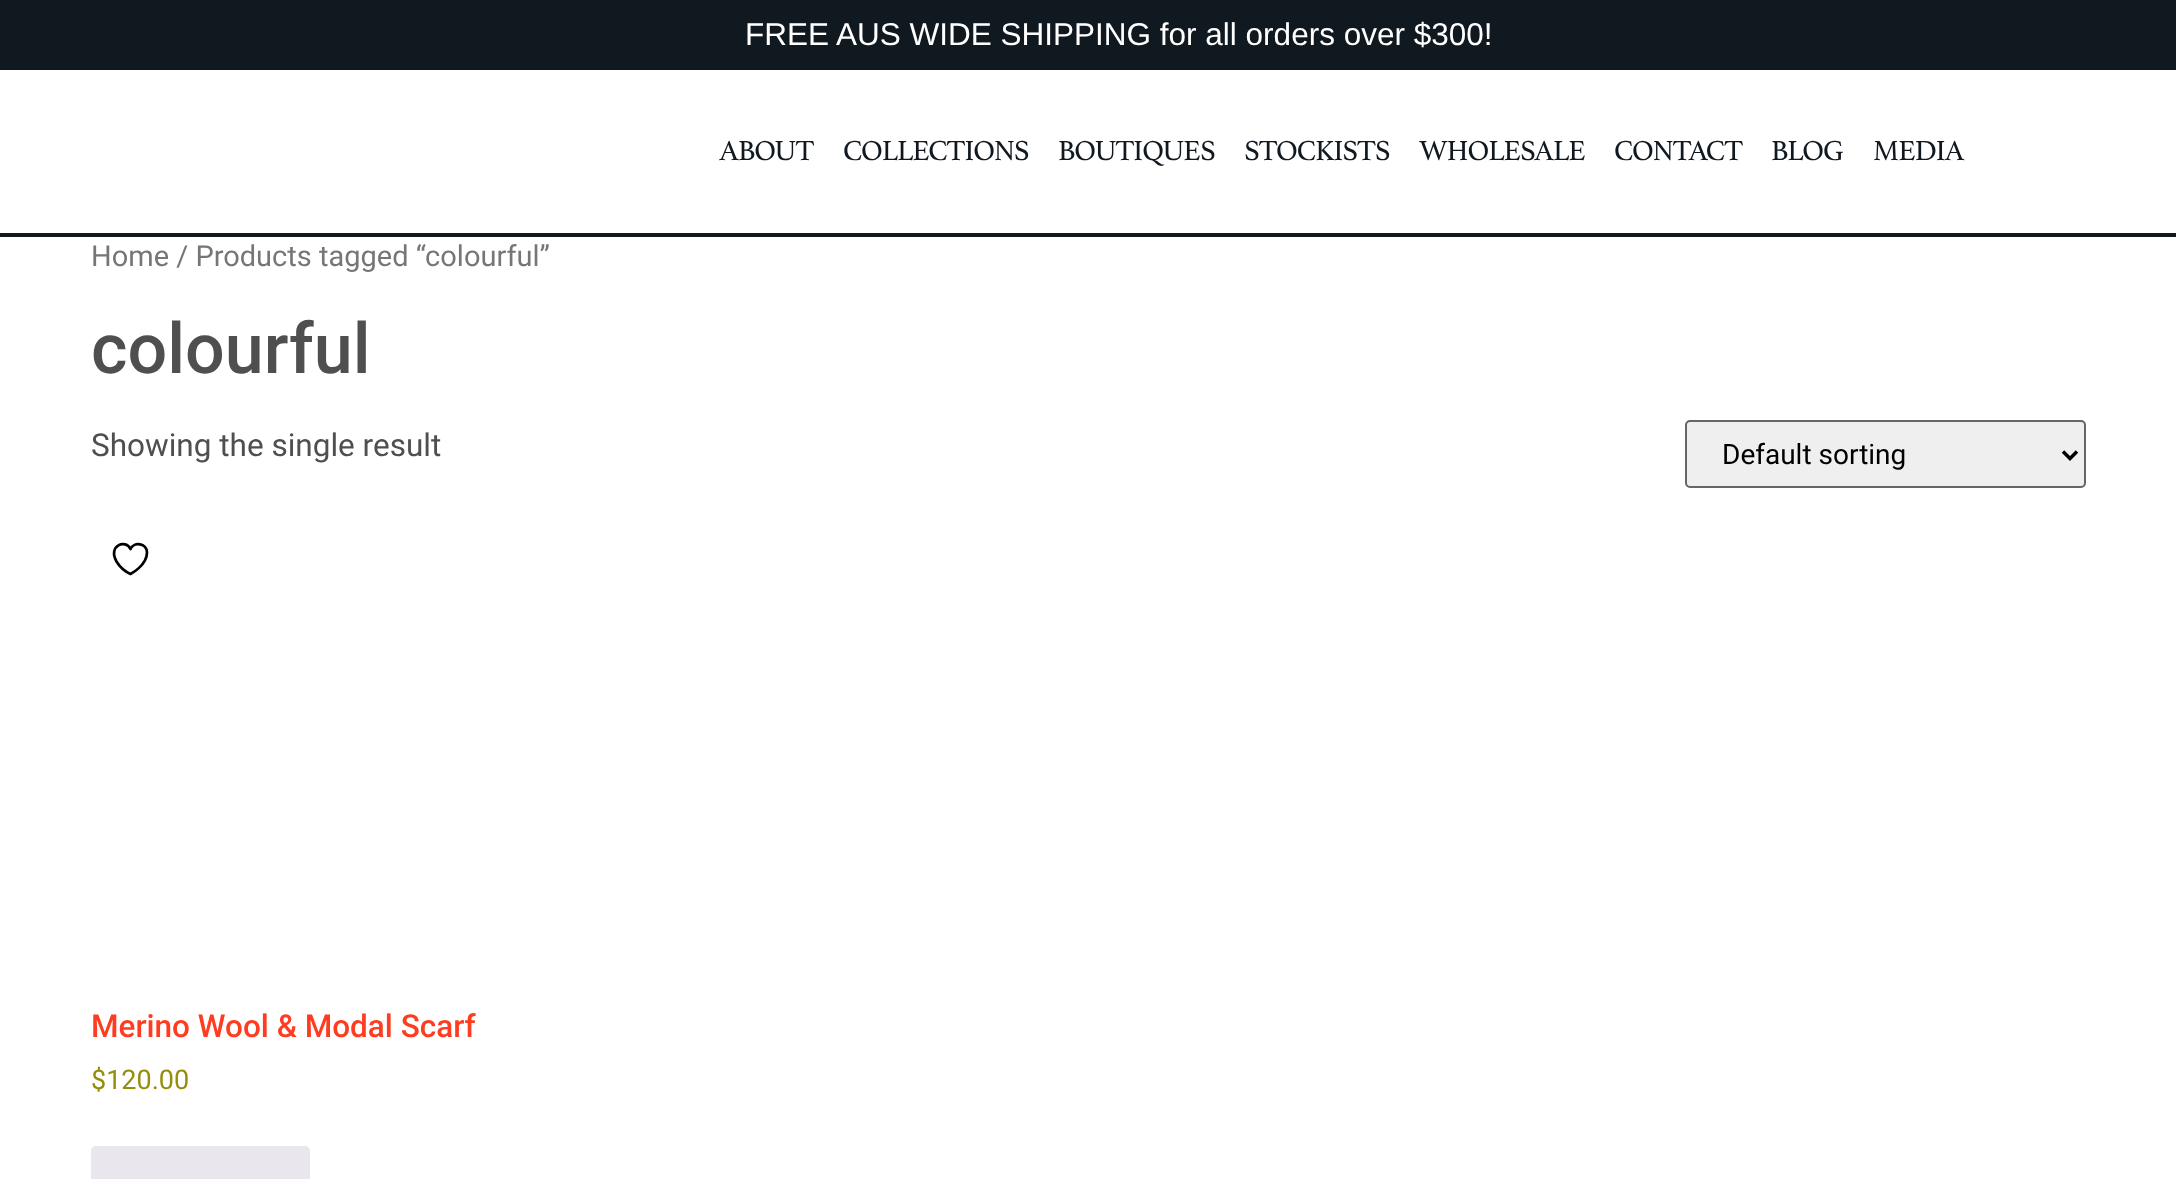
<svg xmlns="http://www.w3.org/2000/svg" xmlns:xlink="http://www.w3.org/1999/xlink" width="2176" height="1179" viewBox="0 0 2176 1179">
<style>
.cls-1{font:31.5px Liberation Sans;fill:#ffffff}
.cls-2{font:29.75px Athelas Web;letter-spacing:-1px;fill:#101820}
.cls-3{font:29px Roboto;fill:#767676}
.cls-4{font:500 70px Roboto;fill:#4f4f4f}
.cls-5{font:31.5px Roboto;fill:#4f4f4f}
.cls-6{font:28px Roboto;fill:#000000}
.cls-7{font:500 31.5px Roboto;fill:#ff3c1f}
.cls-8{font:27px Roboto;fill:#958e09}
</style>
<rect width="100%" height="100%" fill="#ffffff"/>
<rect fill="#101820" x="0" y="0" width="2176" height="70"/>
<rect fill="#101820" x="0" y="233" width="2176" height="4"/>
<rect fill="#efefef" stroke="#666666" stroke-width="2" x="1686" y="421" width="399" height="66" rx="4"/>
<path fill="none" stroke="#000000" stroke-width="3.5" d="M2063 451.5L2070 458.5L2077 451.5"/>
<path fill="none" stroke="#000000" stroke-width="2.7" stroke-linecap="round" stroke-linejoin="round" d="M147 552.5C147 543.5 134 541 130.5 549C126 539 107.5 545 116.5 561.5C119.5 566.5 125 571.5 130.5 574C130.5 574 147 565.5 147 552.5Z"/>
<rect fill="#e9e6ed" x="91" y="1146" width="219" height="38" rx="5"/>
<text class="cls-1" x="745" y="45">FREE AUS WIDE SHIPPING for all orders over $300!</text>
<text class="cls-2" x="719" y="160">ABOUT</text>
<text class="cls-2" x="843" y="160">COLLECTIONS</text>
<text class="cls-2" x="1058" y="160">BOUTIQUES</text>
<text class="cls-2" x="1244" y="160">STOCKISTS</text>
<text class="cls-2" x="1419" y="160">WHOLESALE</text>
<text class="cls-2" x="1614" y="160">CONTACT</text>
<text class="cls-2" x="1771" y="160">BLOG</text>
<text class="cls-2" x="1873" y="160">MEDIA</text>
<text class="cls-3" x="91" y="266">Home / Products tagged “colourful”</text>
<text class="cls-4" x="91" y="373">colourful</text>
<text class="cls-5" x="91" y="456">Showing the single result</text>
<text class="cls-6" x="1722" y="464">Default sorting</text>
<text class="cls-7" x="91" y="1037">Merino Wool &amp; Modal Scarf</text>
<text class="cls-8" x="91" y="1089">$120.00</text>
</svg>
